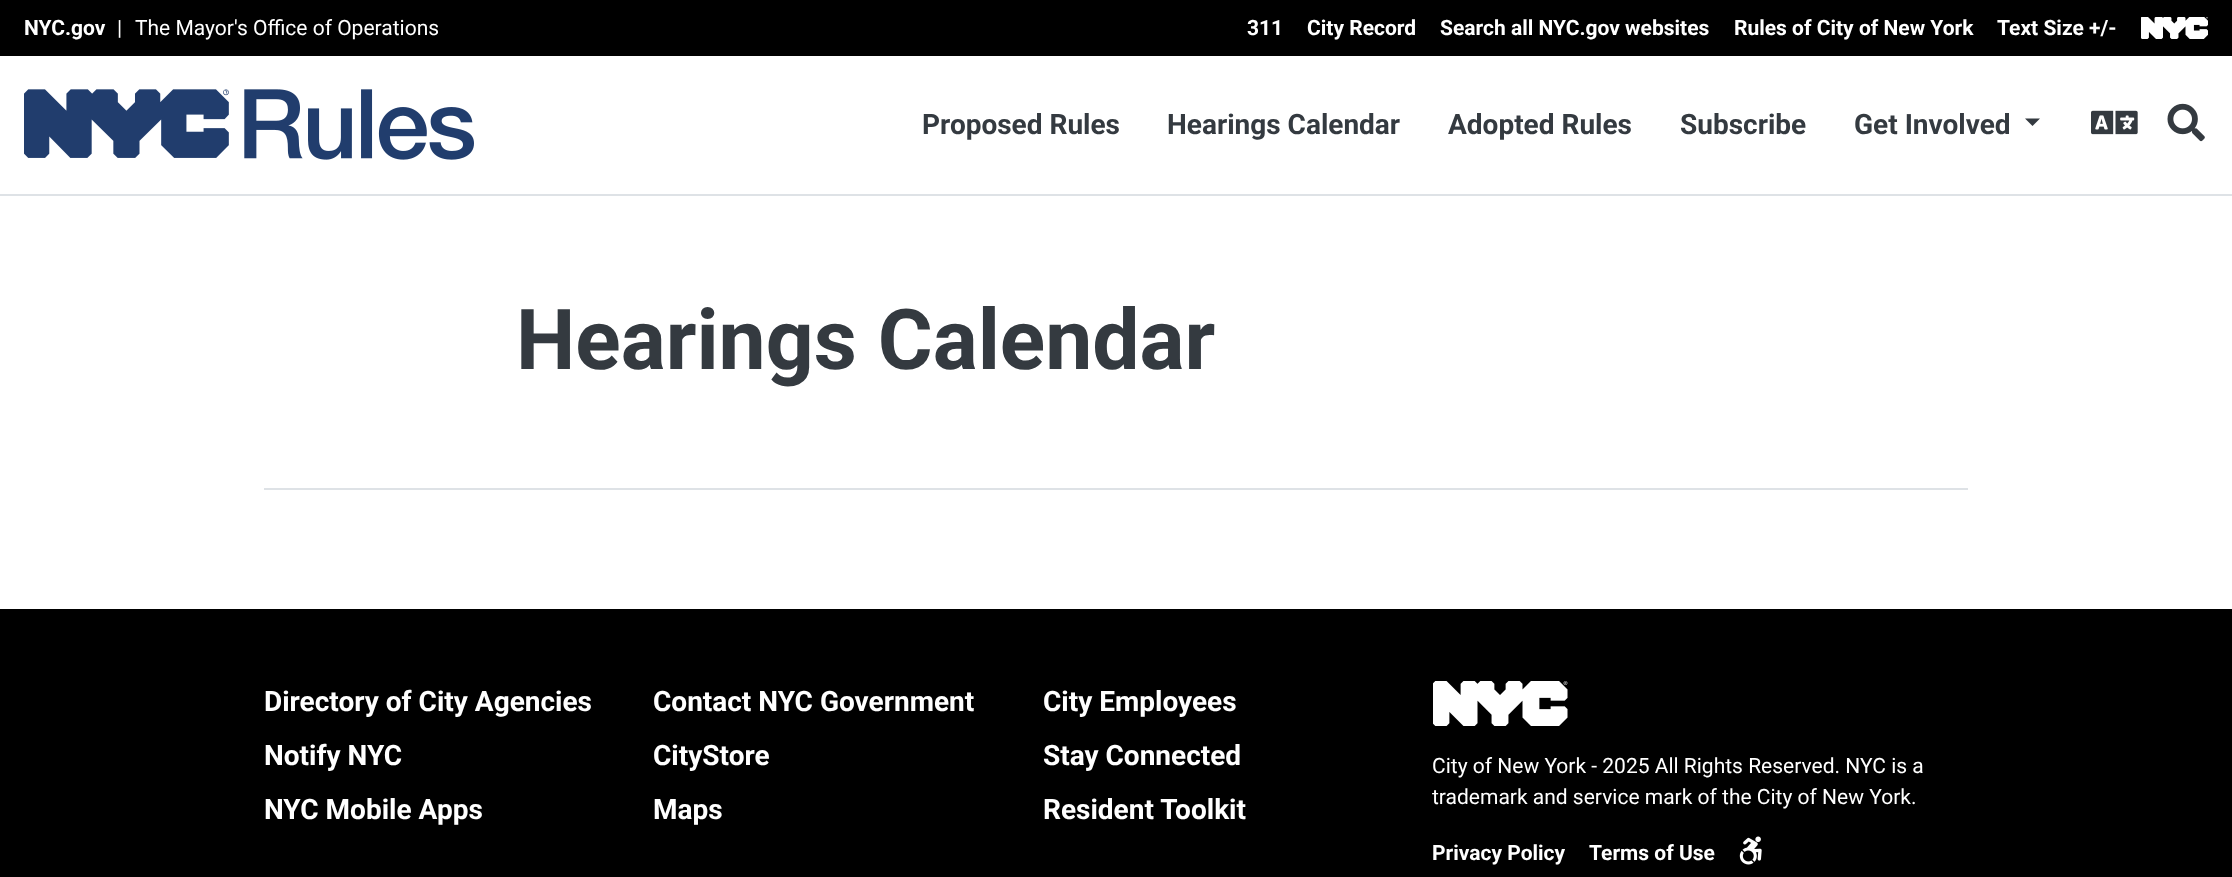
<svg xmlns="http://www.w3.org/2000/svg" xmlns:xlink="http://www.w3.org/1999/xlink" width="2232" height="877" viewBox="0 0 2232 877">
<style>
.cls-1{font:bold 21px Roboto;fill:#ffffff}
.cls-2{font:21px Roboto;fill:#ffffff}
.cls-3{font:bold 28px Roboto;fill:#343a40}
.cls-4{font:bold 84px Roboto;fill:#343a40}
.cls-5{font:bold 28px Roboto;fill:#ffffff}
</style>
<rect width="100%" height="100%" fill="#ffffff"/>
<rect fill="#000000" x="0" y="0" width="2232" height="56"/>
<image xlink:href="image0.png" x="2141" y="17" width="67" height="22"/>
<rect fill="#dee2e6" x="0" y="194" width="2232" height="2"/>
<image xlink:href="image1.png" x="24" y="89" width="450" height="71"/>
<path fill="#343a40" d="M2025 118.5H2040L2032.5 126Z"/>
<image xlink:href="image2.png" x="2091" y="110" width="47" height="25"/>
<image xlink:href="image3.png" x="2167" y="103" width="38" height="39"/>
<rect fill="#dee2e6" x="264" y="488" width="1704" height="2"/>
<rect fill="#000000" x="0" y="609" width="2232" height="268"/>
<image xlink:href="image4.png" x="1433" y="681" width="135" height="45"/>
<image xlink:href="image5.png" x="1739" y="836" width="23" height="29"/>
<text class="cls-1" x="24" y="35">NYC.gov</text>
<text class="cls-2" x="117" y="35">|</text>
<text class="cls-2" x="135" y="35">The Mayor's Office of Operations</text>
<text class="cls-1" x="1247" y="35">311</text>
<text class="cls-1" x="1307" y="35">City Record</text>
<text class="cls-1" x="1440" y="35">Search all NYC.gov websites</text>
<text class="cls-1" x="1734" y="35">Rules of City of New York</text>
<text class="cls-1" x="1997" y="35">Text Size +/-</text>
<text class="cls-3" x="922" y="134">Proposed Rules</text>
<text class="cls-3" x="1167" y="134">Hearings Calendar</text>
<text class="cls-3" x="1448" y="134">Adopted Rules</text>
<text class="cls-3" x="1680" y="134">Subscribe</text>
<text class="cls-3" x="1854" y="134">Get Involved</text>
<text class="cls-4" x="516" y="369">Hearings Calendar</text>
<text class="cls-5"><tspan x="264" y="711">Directory of City Agencies</tspan><tspan x="264" y="765">Notify NYC</tspan><tspan x="264" y="819">NYC Mobile Apps</tspan></text>
<text class="cls-5"><tspan x="653" y="711">Contact NYC Government</tspan><tspan x="653" y="765">CityStore</tspan><tspan x="653" y="819">Maps</tspan></text>
<text class="cls-5"><tspan x="1043" y="711">City Employees</tspan><tspan x="1043" y="765">Stay Connected</tspan><tspan x="1043" y="819">Resident Toolkit</tspan></text>
<text class="cls-2"><tspan x="1432" y="773">City of New York - 2025 All Rights Reserved. NYC is a</tspan><tspan x="1432" y="804">trademark and service mark of the City of New York.</tspan></text>
<text class="cls-1" x="1432" y="860">Privacy Policy</text>
<text class="cls-1" x="1589" y="860">Terms of Use</text>
</svg>
